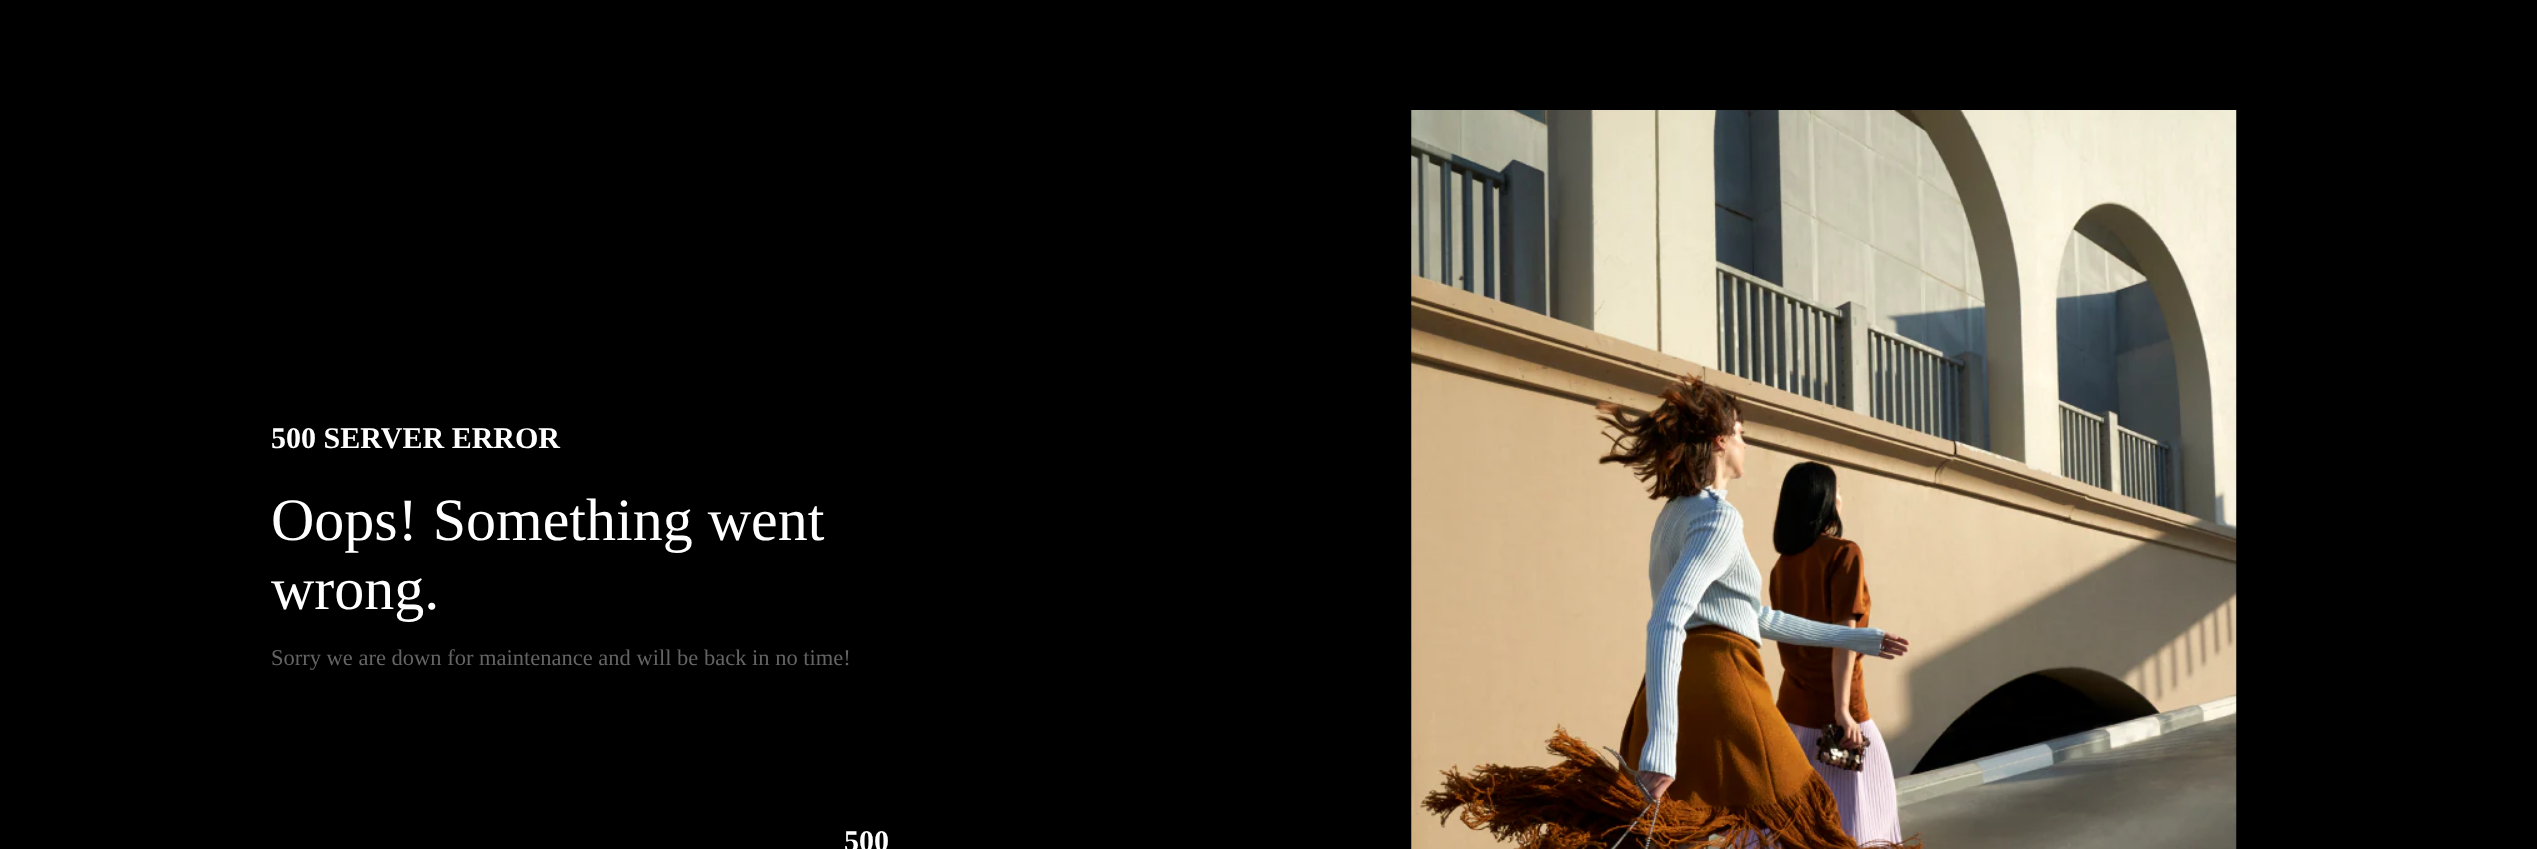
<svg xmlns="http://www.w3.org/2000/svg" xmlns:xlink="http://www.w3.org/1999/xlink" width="2537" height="849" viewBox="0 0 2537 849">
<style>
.cls-1{font:bold 30px Liberation Serif;fill:#ffffff}
.cls-2{font:60px Liberation Serif;fill:#ffffff}
.cls-3{font:22.5px Liberation Serif;fill:#646464}
</style>
<rect width="100%" height="100%" fill="#000000"/>
<image xlink:href="image0.png" x="1411" y="110" width="826" height="739"/>
<text class="cls-1" x="271" y="448">500 SERVER ERROR</text>
<text class="cls-2"><tspan x="271" y="540">Oops! Something went</tspan><tspan x="271" y="609">wrong.</tspan></text>
<text class="cls-3" x="271" y="665">Sorry we are down for maintenance and will be back in no time!</text>
<text class="cls-1" x="844" y="851">500</text>
</svg>
